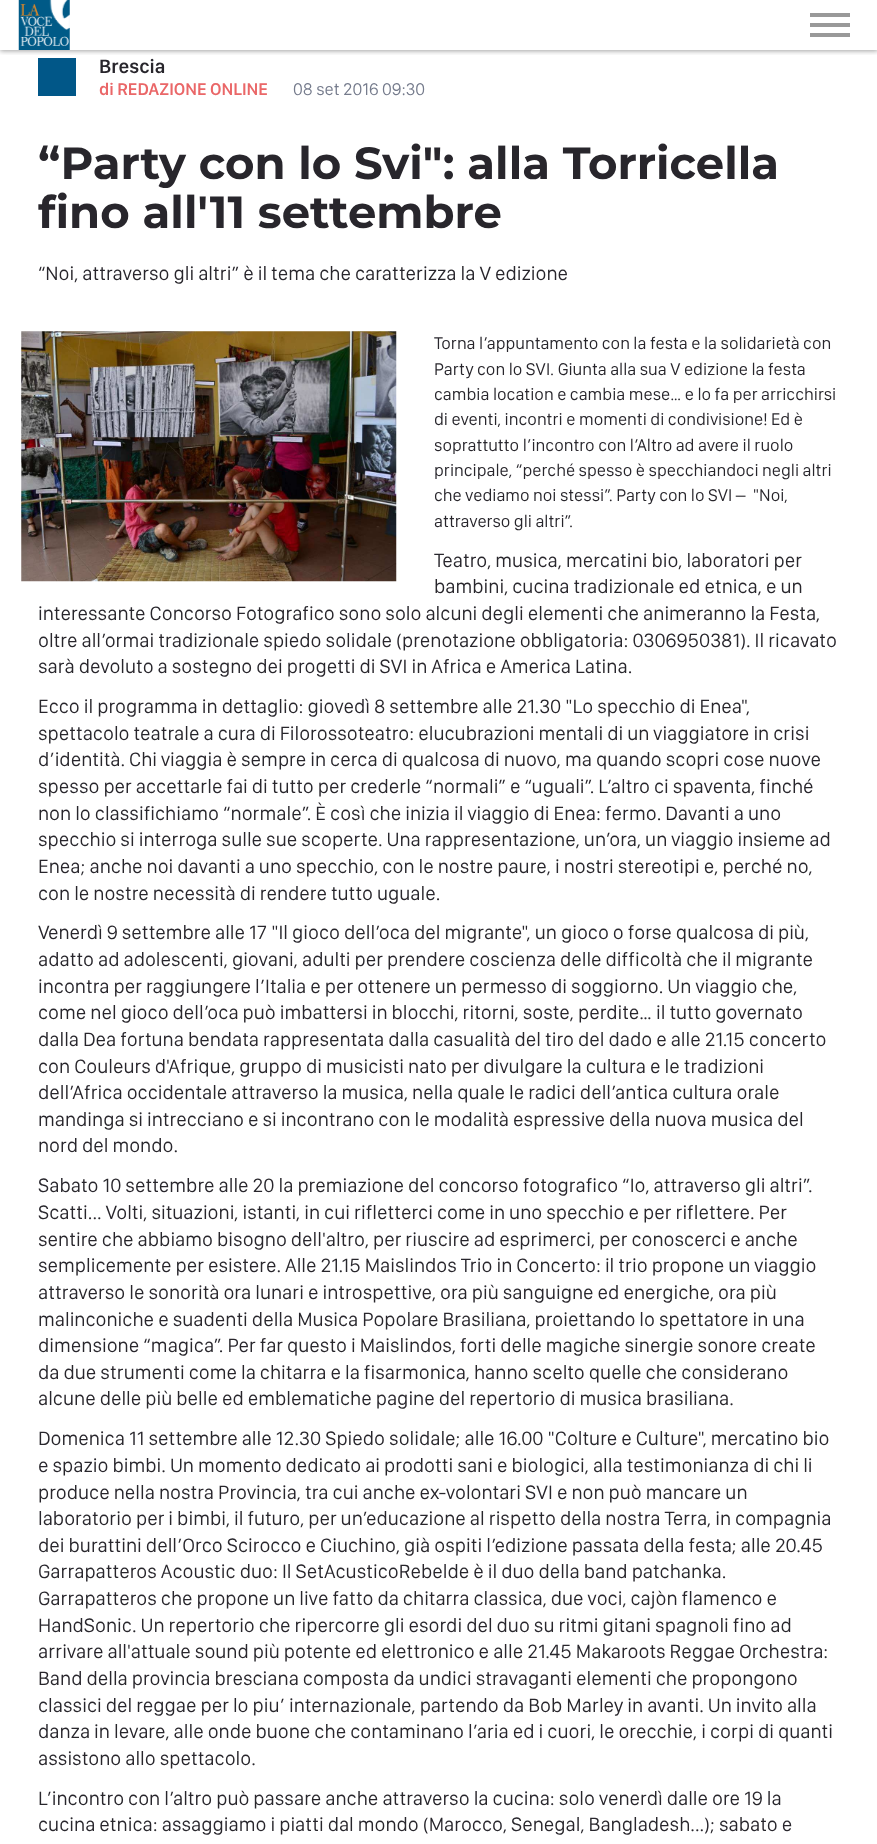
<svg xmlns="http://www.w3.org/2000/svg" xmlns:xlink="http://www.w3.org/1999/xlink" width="877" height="1844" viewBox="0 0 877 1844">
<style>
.cls-1{font:600 20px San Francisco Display;fill:#28262c}
.cls-2{font:600 17.5px San Francisco Display;fill:#ea6768}
.cls-3{font:17.5px San Francisco Display;fill:#757b8c}
.cls-4{font:100 45px Montserrat;fill:#28262c}
.cls-5{font:20px San Francisco Display;fill:#28262c}
.cls-6{font:17.5px San Francisco Display;fill:#28262c}
</style>
<defs>
<clipPath id="clip1"><rect x="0" y="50" width="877" height="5"/></clipPath>
</defs>
<rect width="100%" height="100%" fill="#ffffff"/>
<rect fill="#015788" x="38" y="58" width="38" height="38"/>
<g clip-path="url(#clip1)">
<rect fill="#000000" fill-opacity="0.37" filter="blur(2.5px)" x="0" y="1" width="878" height="50"/>
</g>
<image xlink:href="image0.png" x="18" y="0" width="52" height="50"/>
<rect fill="#999999" x="810" y="13" width="40" height="4"/>
<rect fill="#999999" x="810" y="23" width="40" height="4"/>
<rect fill="#999999" x="810" y="33" width="40" height="4"/>
<image xlink:href="image1.png" x="21" y="331" width="376" height="251"/>
<text class="cls-1" x="99" y="73">Brescia</text>
<text class="cls-2" x="99" y="95">di REDAZIONE ONLINE</text>
<text class="cls-3" x="293" y="95">08 set 2016 09:30</text>
<text class="cls-4"><tspan x="38" y="179">“Party con lo Svi": alla Torricella</tspan><tspan x="38" y="228">fino all'11 settembre</tspan></text>
<text class="cls-5" x="38" y="280">“Noi, attraverso gli altri” è il tema che caratterizza la V edizione</text>
<text class="cls-6" xml:space="preserve"><tspan x="434" y="349">Torna l’appuntamento con la festa e la solidarietà con</tspan><tspan x="434" y="375">Party con lo SVI. Giunta alla sua V edizione la festa</tspan><tspan x="434" y="400">cambia location e cambia mese… e lo fa per arricchirsi</tspan><tspan x="434" y="425">di eventi, incontri e momenti di condivisione! Ed è</tspan><tspan x="434" y="451">soprattutto l’incontro con l’Altro ad avere il ruolo</tspan><tspan x="434" y="476">principale, “perché spesso è specchiandoci negli altri</tspan><tspan x="434" y="501">che vediamo noi stessi”. Party con lo SVI –  "Noi,</tspan><tspan x="434" y="527">attraverso gli altri”.</tspan></text>
<text class="cls-5"><tspan x="434" y="567">Teatro, musica, mercatini bio, laboratori per</tspan><tspan x="434" y="593">bambini, cucina tradizionale ed etnica, e un</tspan></text>
<text class="cls-5"><tspan x="38" y="620">interessante Concorso Fotografico sono solo alcuni degli elementi che animeranno la Festa,</tspan><tspan x="38" y="647">oltre all’ormai tradizionale spiedo solidale (prenotazione obbligatoria: 0306950381). Il ricavato</tspan><tspan x="38" y="673">sarà devoluto a sostegno dei progetti di SVI in Africa e America Latina.</tspan></text>
<text class="cls-5"><tspan x="38" y="713">Ecco il programma in dettaglio: giovedì 8 settembre alle 21.30 "Lo specchio di Enea",</tspan><tspan x="38" y="740">spettacolo teatrale a cura di Filorossoteatro: elucubrazioni mentali di un viaggiatore in crisi</tspan><tspan x="38" y="766">d’identità. Chi viaggia è sempre in cerca di qualcosa di nuovo, ma quando scopri cose nuove</tspan><tspan x="38" y="793">spesso per accettarle fai di tutto per crederle “normali” e “uguali”. L’altro ci spaventa, finché</tspan><tspan x="38" y="820">non lo classifichiamo “normale”. È così che inizia il viaggio di Enea: fermo. Davanti a uno</tspan><tspan x="38" y="846">specchio si interroga sulle sue scoperte. Una rappresentazione, un’ora, un viaggio insieme ad</tspan><tspan x="38" y="873">Enea; anche noi davanti a uno specchio, con le nostre paure, i nostri stereotipi e, perché no,</tspan><tspan x="38" y="900">con le nostre necessità di rendere tutto uguale.</tspan><tspan x="38" y="939">V</tspan></text>
<text class="cls-5" x="48" y="939">enerdì 9 settembre alle 17 "Il gioco dell’oca del migrante", un gioco o forse qualcosa di più,</text>
<text class="cls-5"><tspan x="38" y="966">adatto ad adolescenti, giovani, adulti per prendere coscienza delle difficoltà che il migrante</tspan><tspan x="38" y="993">incontra per raggiungere l’Italia e per ottenere un permesso di soggiorno. Un viaggio che,</tspan><tspan x="38" y="1019">come nel gioco dell’oca può imbattersi in blocchi, ritorni, soste, perdite… il tutto governato</tspan><tspan x="38" y="1046">dalla Dea fortuna bendata rappresentata dalla casualità del tiro del dado e alle 21.15 concerto</tspan><tspan x="38" y="1073">con Couleurs d'Afrique, gruppo di musicisti nato per divulgare la cultura e le tradizioni</tspan><tspan x="38" y="1099">dell’Africa occidentale attraverso la musica, nella quale le radici dell’antica cultura orale</tspan><tspan x="38" y="1126">mandinga si intrecciano e si incontrano con le modalità espressive della nuova musica del</tspan><tspan x="38" y="1152">nord del mondo.</tspan></text>
<text class="cls-5"><tspan x="38" y="1192">Sabato 10 settembre alle 20 la premiazione del concorso fotografico “Io, attraverso gli altri”.</tspan><tspan x="38" y="1219">Scatti... Volti, situazioni, istanti, in cui rifletterci come in uno specchio e per riflettere. Per</tspan><tspan x="38" y="1246">sentire che abbiamo bisogno dell'altro, per riuscire ad esprimerci, per conoscerci e anche</tspan><tspan x="38" y="1272">semplicemente per esistere. Alle 21.15 Maislindos Trio in Concerto: il trio propone un viaggio</tspan><tspan x="38" y="1299">attraverso le sonorità ora lunari e introspettive, ora più sanguigne ed energiche, ora più</tspan><tspan x="38" y="1326">malinconiche e suadenti della Musica Popolare Brasiliana, proiettando lo spettatore in una</tspan><tspan x="38" y="1352">dimensione “magica”. Per far questo i Maislindos, forti delle magiche sinergie sonore create</tspan><tspan x="38" y="1379">da due strumenti come la chitarra e la fisarmonica, hanno scelto quelle che considerano</tspan><tspan x="38" y="1405">alcune delle più belle ed emblematiche pagine del repertorio di musica brasiliana.</tspan></text>
<text class="cls-5"><tspan x="38" y="1445">Domenica 11 settembre alle 12.30 Spiedo solidale; alle 16.00 "Colture e Culture", mercatino bio</tspan><tspan x="38" y="1472">e spazio bimbi. Un momento dedicato ai prodotti sani e biologici, alla testimonianza di chi li</tspan><tspan x="38" y="1499">produce nella nostra Provincia, tra cui anche ex-volontari SVI e non può mancare un</tspan><tspan x="38" y="1525">laboratorio per i bimbi, il futuro, per un’educazione al rispetto della nostra Terra, in compagnia</tspan><tspan x="38" y="1552">dei burattini dell’Orco Scirocco e Ciuchino, già ospiti l’edizione passata della festa; alle 20.45</tspan><tspan x="38" y="1578">Garrapatteros Acoustic duo: Il SetAcusticoRebelde è il duo della band patchanka.</tspan><tspan x="38" y="1605">Garrapatteros che propone un live fatto da chitarra classica, due voci, cajòn flamenco e</tspan><tspan x="38" y="1632">HandSonic. Un repertorio che ripercorre gli esordi del duo su ritmi gitani spagnoli fino ad</tspan><tspan x="38" y="1658">arrivare all'attuale sound più potente ed elettronico e alle 21.45 Makaroots Reggae Orchestra:</tspan><tspan x="38" y="1685">Band della provincia bresciana composta da undici stravaganti elementi che propongono</tspan><tspan x="38" y="1712">classici del reggae per lo piu’ internazionale, partendo da Bob Marley in avanti. Un invito alla</tspan><tspan x="38" y="1738">danza in levare, alle onde buone che contaminano l’aria ed i cuori, le orecchie, i corpi di quanti</tspan><tspan x="38" y="1765">assistono allo spettacolo.</tspan></text>
<text class="cls-5"><tspan x="38" y="1805">L’incontro con l’altro può passare anche attraverso la cucina: solo venerdì dalle ore 19 la</tspan><tspan x="38" y="1831">cucina etnica: assaggiamo i piatti dal mondo (Marocco, Senegal, Bangladesh...); sabato e</tspan></text>
</svg>
